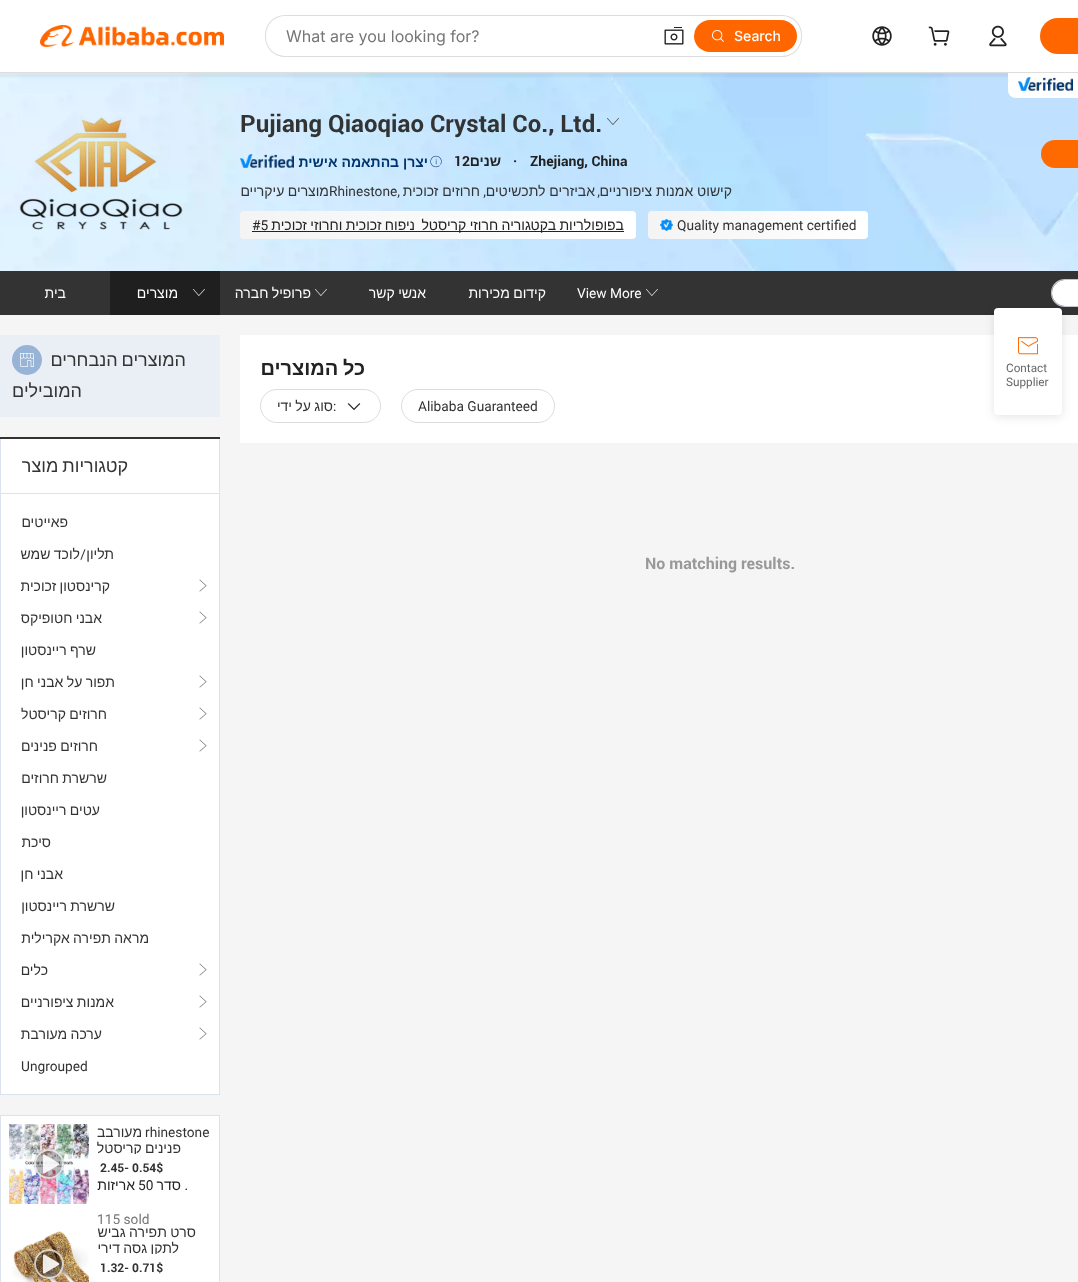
<svg xmlns="http://www.w3.org/2000/svg" xmlns:xlink="http://www.w3.org/1999/xlink" width="1078" height="1282" viewBox="0 0 1078 1282">
<style>
.cls-1{font:500 14px Inter;fill:#ffffff}
.cls-2{font:16px Inter;fill:#767676}
.cls-3{font:12px Roboto;fill:#666666}
.cls-4{font:bold 24px Roboto;fill:#333333}
.cls-5{font:bold 14px Roboto;fill:#222222}
.cls-6{font:bold 14px Liberation Sans;direction:rtl;fill:#222222}
.cls-7{font:bold 14px Liberation Sans;direction:rtl;fill:#00346e}
.cls-8{font:14px Liberation Sans;direction:rtl;fill:#333333}
.cls-9{font:14px Roboto;direction:rtl;fill:#333333}
.cls-10{font:14px Roboto;fill:#333333}
.cls-11{font:14px Liberation Sans;direction:rtl;fill:#222222}
.cls-12{font:14px Roboto;fill:#222222}
.cls-13{font:14px Roboto;fill:#ffffff}
.cls-14{font:14px Liberation Sans;direction:rtl;fill:#ffffff}
.cls-15{font:bold 20px Liberation Sans;direction:rtl;fill:#222222}
.cls-16{font:bold 16px Roboto;fill:#999999}
.cls-17{font:18px Liberation Sans;direction:rtl;fill:#333333}
.cls-18{font:bold 12px Roboto;fill:#333333}
.cls-19{font:bold 12px Roboto;direction:rtl;fill:#333333}
.cls-20{font:14px Roboto;direction:rtl;fill:#222222}
.cls-21{font:14px Roboto;fill:#767676}
</style>
<defs>
<linearGradient id="g1" gradientUnits="userSpaceOnUse" x1="868" y1="225" x2="648" y2="225"><stop offset="0" stop-color="#ffffff"/><stop offset="1" stop-color="#f4f4f4"/></linearGradient>
<linearGradient id="g2" gradientUnits="userSpaceOnUse" x1="636" y1="225" x2="240" y2="225"><stop offset="0" stop-color="#ffffff"/><stop offset="1" stop-color="#f4f4f4"/></linearGradient>
<clipPath id="clip1"><rect x="97" y="1124" width="114" height="30"/></clipPath>
<clipPath id="clip2"><rect x="97" y="1124" width="114" height="100"/></clipPath>
<clipPath id="clip3"><rect x="97" y="1224" width="114" height="30"/></clipPath>
</defs>
<rect width="100%" height="100%" fill="#ffffff"/>
<image xlink:href="image7.png" x="0" y="73" width="1078" height="198"/>
<rect fill="#000000" fill-opacity="0.05" filter="blur(1px)" x="-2" y="73" width="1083" height="4"/>
<rect fill="#dddddd" x="0" y="72" width="1078" height="1"/>
<rect fill="#ff6600" x="1040" y="18" width="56" height="36" rx="18"/>
<image xlink:href="image0.png" x="989" y="25" width="18" height="22"/>
<image xlink:href="image1.png" x="928" y="26" width="22" height="20"/>
<image xlink:href="image2.png" x="872" y="26" width="20" height="20"/>
<rect fill="#dddddd" x="265" y="15" width="537" height="42" rx="20"/>
<rect fill="#ffffff" x="266" y="16" width="535" height="40" rx="19"/>
<rect fill="#ff6600" x="694" y="20" width="103" height="32" rx="16"/>
<image xlink:href="image3.png" x="712" y="30" width="12" height="12"/>
<image xlink:href="image4.png" x="664" y="27" width="20" height="18"/>
<image xlink:href="image5.png" x="40" y="25" width="184" height="22"/>
<rect fill="#333333" x="0" y="271" width="1078" height="44"/>
<path fill="#c4c6cf" fill-rule="evenodd" d="M1065 279H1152V307H1065C1057 307 1051 301 1051 293C1051 285 1057 279 1065 279ZM1065 280H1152V306H1065C1058 306 1052 300 1052 293C1052 286 1058 280 1065 280Z"/>
<path fill="#ffffff" d="M1065 280H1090.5C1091 280 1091 280 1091 280.5V305.5C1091 306 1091 306 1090.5 306H1065C1058 306 1052 300 1052 293C1052 286 1058 280 1065 280Z"/>
<rect fill="#f5f5f5" x="0" y="315" width="1078" height="967"/>
<rect fill="#ffffff" x="240" y="335" width="838" height="108"/>
<rect fill="#000000" fill-opacity="0.1" filter="blur(5px)" x="994" y="310" width="68" height="107" rx="4"/>
<rect fill="#ffffff" x="994" y="308" width="68" height="107" rx="4"/>
<image xlink:href="image6.png" x="1018" y="337" width="20" height="18"/>
<path fill="#ffffff" d="M1008 73H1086V90C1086 94.5 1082.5 98 1078 98H1016C1011.5 98 1008 94.5 1008 90Z"/>
<image xlink:href="image8.png" x="1018" y="77" width="55" height="14"/>
<rect fill="#ff6a00" x="1041" y="140" width="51" height="28" rx="14"/>
<image xlink:href="image9.png" x="607" y="118" width="12" height="7"/>
<image xlink:href="image10.png" x="430" y="155" width="12" height="13"/>
<image xlink:href="image11.png" x="240" y="154" width="54" height="14"/>
<rect fill="url(#g1)" x="648" y="211" width="220" height="28" rx="4"/>
<image xlink:href="image12.png" x="660" y="219" width="13" height="12"/>
<rect fill="url(#g2)" x="240" y="211" width="396" height="28" rx="4"/>
<rect fill="#222222" x="252" y="231" width="372" height="1"/>
<image xlink:href="image13.png" x="19" y="117" width="164" height="113"/>
<image xlink:href="image14.png" x="646" y="289" width="12" height="7"/>
<image xlink:href="image14.png" x="315" y="289" width="12" height="7"/>
<rect fill="#1f1f1f" x="110" y="271" width="110" height="44"/>
<image xlink:href="image15.png" x="193" y="289" width="12" height="7"/>
<rect fill="none" stroke="#dddddd" x="401.5" y="389.5" width="153" height="33" rx="16.5"/>
<rect fill="none" stroke="#dddddd" x="260.5" y="389.5" width="120" height="33" rx="16.5"/>
<image xlink:href="image16.png" x="347" y="403" width="14" height="7"/>
<rect fill="#e9eff5" x="0" y="335" width="220" height="82"/>
<circle fill="#97b3d5" cx="27" cy="360" r="15"/>
<image xlink:href="image17.png" x="20" y="353" width="14" height="14"/>
<rect fill="#ffffff" x="1" y="439" width="218" height="655"/>
<rect fill="#333333" x="0" y="437" width="220" height="2"/>
<rect fill="#dbe3ef" x="219" y="439" width="1" height="656"/>
<rect fill="#dbe3ef" x="0" y="1094" width="220" height="1"/>
<rect fill="#dbe3ef" x="0" y="439" width="1" height="656"/>
<rect fill="#dbe3ef" x="1" y="493" width="218" height="1"/>
<image xlink:href="image18.png" x="199" y="579" width="8" height="13"/>
<image xlink:href="image18.png" x="199" y="611" width="8" height="13"/>
<image xlink:href="image18.png" x="199" y="675" width="8" height="13"/>
<image xlink:href="image18.png" x="199" y="707" width="8" height="13"/>
<image xlink:href="image18.png" x="199" y="739" width="8" height="13"/>
<image xlink:href="image18.png" x="199" y="963" width="8" height="13"/>
<image xlink:href="image18.png" x="199" y="995" width="8" height="13"/>
<image xlink:href="image18.png" x="199" y="1027" width="8" height="13"/>
<rect fill="#ffffff" stroke="#dbe3ef" x="0.5" y="1115.5" width="219" height="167"/>
<image xlink:href="image19.png" x="9" y="1124" width="80" height="80"/>
<circle fill="#000000" fill-opacity="0.27" cx="49" cy="1164" r="15"/>
<circle fill="none" stroke="#ffffff" stroke-opacity="0.72" stroke-width="2" cx="49" cy="1164" r="14"/>
<image xlink:href="image20.png" x="43" y="1154" width="17" height="20"/>
<image xlink:href="image21.png" x="12" y="1231" width="77" height="51"/>
<circle fill="#000000" fill-opacity="0.27" cx="49" cy="1264" r="15"/>
<circle fill="none" stroke="#ffffff" stroke-opacity="0.72" stroke-width="2" cx="49" cy="1264" r="14"/>
<image xlink:href="image22.png" x="42" y="1254" width="18" height="20"/>
<text class="cls-1" x="734" y="41">Search</text>
<text class="cls-2" x="286" y="42">What are you looking for?</text>
<text class="cls-3"><tspan x="1006" y="372">Contact</tspan><tspan x="1006" y="386">Supplier</tspan></text>
<text class="cls-4" x="240" y="132">Pujiang Qiaoqiao Crystal Co., Ltd.</text>
<text class="cls-5" x="530" y="166">Zhejiang, China</text>
<text class="cls-5" x="513" y="166">·</text>
<text class="cls-6" x="501" y="166">שנים</text>
<text class="cls-5" x="454" y="166">12</text>
<text class="cls-7" x="428" y="167">יצרן בהתאמה אישית</text>
<text class="cls-8" x="732" y="196">קישוט אמנות ציפורניים</text>
<text class="cls-9" x="600" y="196">,</text>
<text class="cls-8" x="595" y="196">אביזרים לתכשיטים</text>
<text class="cls-9" x="486" y="196">,</text>
<text class="cls-8" x="480" y="196">חרוזים זכוכית</text>
<text class="cls-10" x="329" y="196">Rhinestone,</text>
<text class="cls-8" x="329" y="196" word-spacing="-0.5">מוצרים עיקריים</text>
<text class="cls-10" x="677" y="230">Quality management certified</text>
<text class="cls-11" x="624" y="230" word-spacing="-0.5">בפופולריות בקטגוריה חרוזי קריסטל</text>
<text class="cls-11" x="415" y="230" word-spacing="-0.5">ניפוח זכוכית וחרוזי זכוכית</text>
<text class="cls-12" x="252" y="230">#5</text>
<text class="cls-13" x="577" y="298">View More</text>
<text class="cls-14" x="546" y="298" word-spacing="-0.5">קידום מכירות</text>
<text class="cls-14" x="426" y="298" word-spacing="-0.5">אנשי קשר</text>
<text class="cls-14" x="311" y="298" word-spacing="-0.5">פרופיל חברה</text>
<text class="cls-14" x="178" y="298">מוצרים</text>
<text class="cls-14" x="66" y="298">בית</text>
<text class="cls-15" x="365" y="375" word-spacing="-1">כל המוצרים</text>
<text class="cls-10" x="418" y="411">Alibaba Guaranteed</text>
<text class="cls-10" x="333" y="411">:</text>
<text class="cls-8" x="333" y="411" word-spacing="-0.5">סוג על ידי</text>
<text class="cls-16" x="645" y="569">No matching results.</text>
<text class="cls-17" x="186" y="366" word-spacing="-1">המוצרים הנבחרים</text>
<text class="cls-17" x="82" y="397">המובילים</text>
<text class="cls-17" x="128" y="472" word-spacing="-1">קטגוריות מוצר</text>
<text class="cls-8" x="68" y="527">פאייטים</text>
<text class="cls-8" x="114" y="559">תליון</text>
<text class="cls-8" x="80" y="559" word-spacing="-0.5">לוכד שמש</text>
<text class="cls-9" x="86" y="559">/</text>
<text class="cls-8" x="110" y="591" word-spacing="-0.5">קרינסטון זכוכית</text>
<text class="cls-8" x="102" y="623" word-spacing="-0.5">אבני חטופיקס</text>
<text class="cls-8" x="96" y="655" word-spacing="-0.5">שרף ריינסטון</text>
<text class="cls-8" x="115" y="687" word-spacing="-0.5">תפור על אבני חן</text>
<text class="cls-8" x="107" y="719" word-spacing="-0.5">חרוזים קריסטל</text>
<text class="cls-8" x="98" y="751" word-spacing="-0.5">חרוזים פנינים</text>
<text class="cls-8" x="107" y="783" word-spacing="-0.5">שרשרת חרוזים</text>
<text class="cls-8" x="100" y="815" word-spacing="-0.5">עטים ריינסטון</text>
<text class="cls-8" x="51" y="847">סיכת</text>
<text class="cls-8" x="63" y="879" word-spacing="-0.5">אבני חן</text>
<text class="cls-8" x="115" y="911" word-spacing="-0.5">שרשרת ריינסטון</text>
<text class="cls-8" x="149" y="943" word-spacing="-0.5">מראה תפירה אקרילית</text>
<text class="cls-8" x="48" y="975">כלים</text>
<text class="cls-8" x="114" y="1007" word-spacing="-0.5">אמנות ציפורניים</text>
<text class="cls-8" x="102" y="1039" word-spacing="-0.5">ערכה מעורבת</text>
<text class="cls-10" x="21" y="1071">Ungrouped</text>
<text class="cls-10" x="145" y="1137">rhinestone</text>
<text class="cls-8" x="142" y="1137">מעורבב</text>
<g clip-path="url(#clip1)">
<text class="cls-8" x="181" y="1153" word-spacing="-0.5">פנינים קריסטל</text>
</g>
<text class="cls-18" x="132" y="1172">0.54$</text>
<text class="cls-19" x="129" y="1172">-</text>
<text class="cls-18" x="100" y="1172">2.45</text>
<text class="cls-20" x="188" y="1190">.</text>
<text class="cls-11" x="181" y="1190">סדר</text>
<text class="cls-12" x="138" y="1190">50</text>
<text class="cls-11" x="135" y="1190">אריזות</text>
<g clip-path="url(#clip2)">
<text class="cls-21" x="97" y="1224">115 sold</text>
</g>
<text class="cls-8" x="196" y="1237" word-spacing="-0.5">סרט תפירה גביש</text>
<g clip-path="url(#clip3)">
<text class="cls-8" x="179" y="1253" word-spacing="-0.5">לתקן גסה דירי</text>
</g>
<text class="cls-18" x="132" y="1272">0.71$</text>
<text class="cls-19" x="129" y="1272">-</text>
<text class="cls-18" x="100" y="1272">1.32</text>
</svg>
